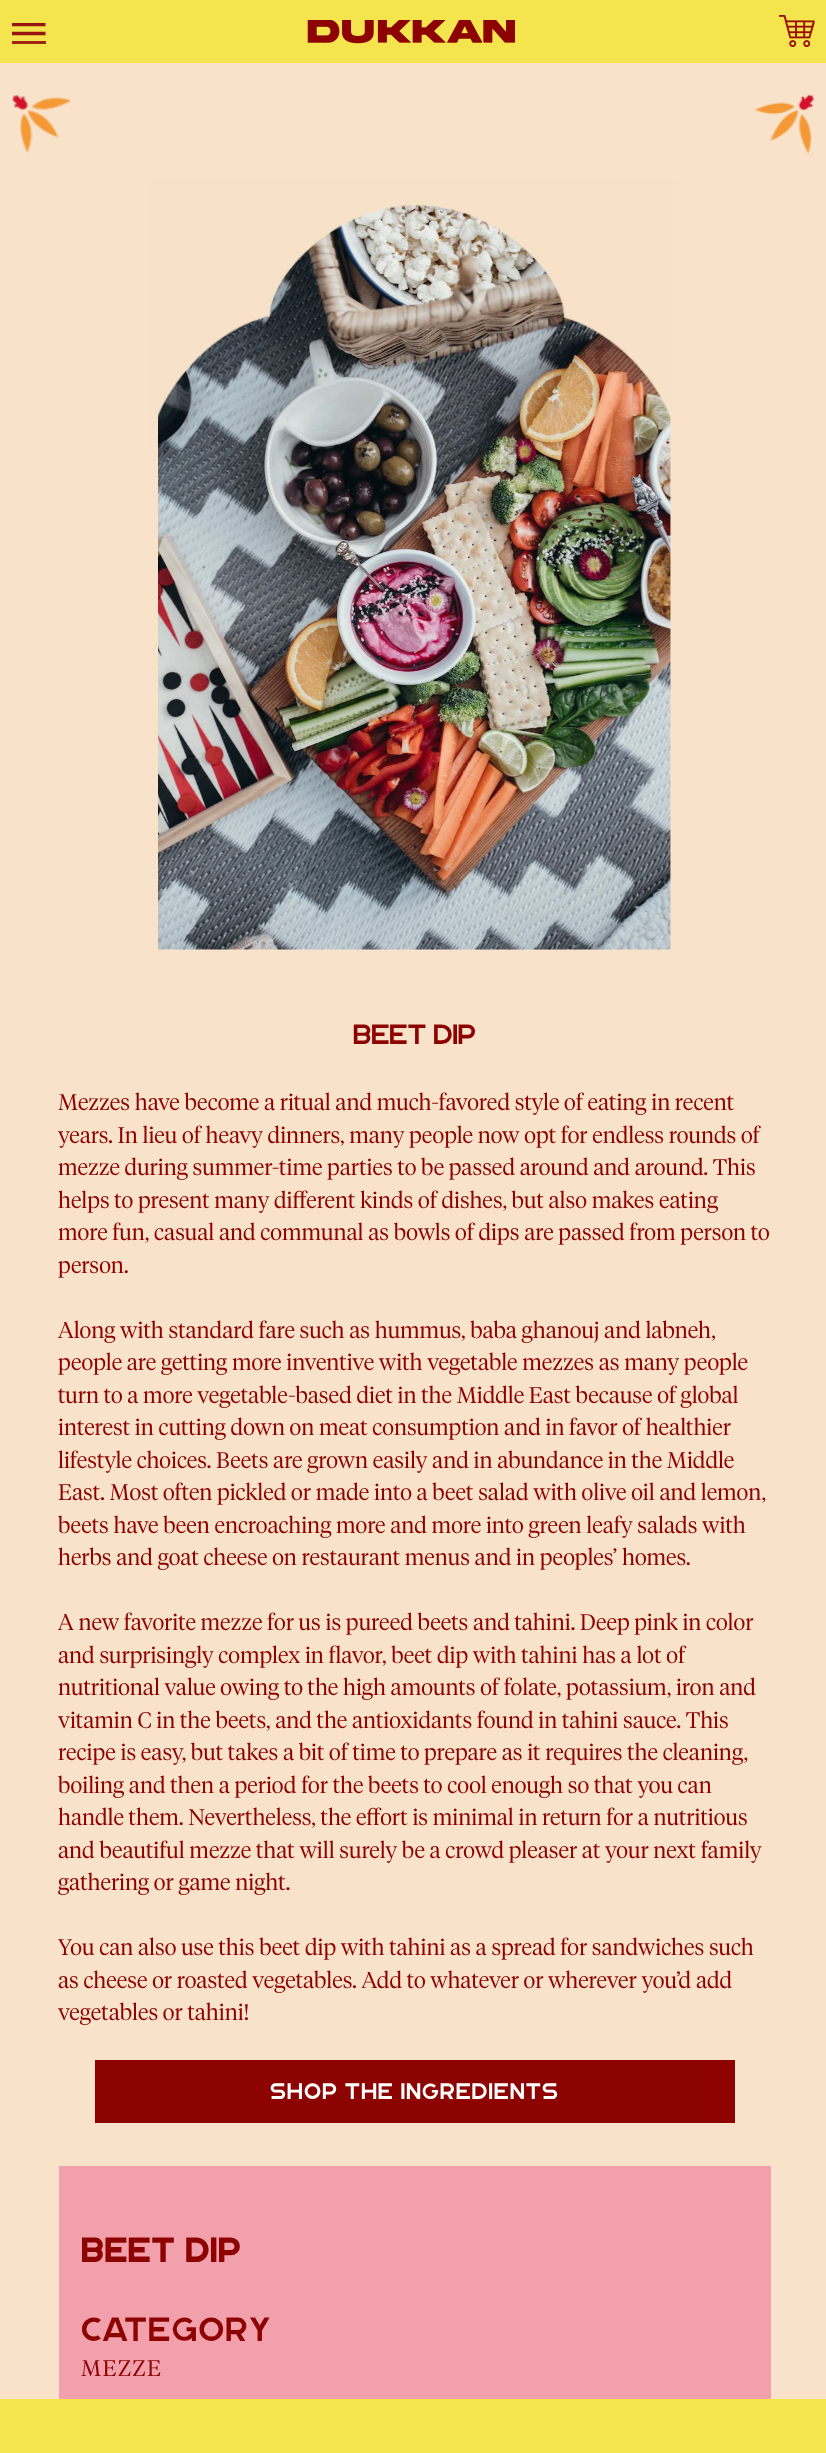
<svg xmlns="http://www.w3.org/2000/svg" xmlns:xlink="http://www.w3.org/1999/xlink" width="826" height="2453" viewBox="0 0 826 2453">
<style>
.cls-1{font:300 28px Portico;fill:#8d0301}
.cls-2{font:300 22.5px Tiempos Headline;fill:#8d0301}
.cls-3{font:300 22.5px Portico;letter-spacing:1.25px;fill:#ffffff}
.cls-4{font:bold 33.75px Portico;letter-spacing:1.5px;fill:#8d0301}
.cls-5{font:300 33.75px Portico;letter-spacing:1.5px;fill:#8d0301}
.cls-6{font:300 22.5px Tiempos Headline;letter-spacing:1.5px;fill:#8d0301}
</style>
<defs>
<clipPath id="clip1"><rect x="12" y="23" width="35" height="21"/></clipPath>
</defs>
<rect width="100%" height="100%" fill="#f8e2c9"/>
<rect fill="#f4e44e" x="0" y="0" width="826" height="63"/>
<g clip-path="url(#clip1)">
<path fill="none" stroke="#97140f" stroke-width="3.7" d="M12 24.5H45.5"/>
</g>
<path fill="none" stroke="#97140f" stroke-width="3.7" d="M12 33.5H45.5"/>
<rect fill="#9e2414" x="12" y="41" width="34" height="3"/>
<image xlink:href="image0.png" x="307" y="20" width="209" height="24"/>
<image xlink:href="image1.png" x="779" y="15" width="36" height="32"/>
<image xlink:href="image2.png" x="12" y="95" width="59" height="58"/>
<image xlink:href="image3.png" x="754" y="94" width="61" height="60"/>
<image xlink:href="image5.png" x="158" y="204" width="513" height="746"/>
<image xlink:href="image4.png" x="150" y="180" width="528" height="280"/>
<rect fill="#8d0301" x="95" y="2060" width="640" height="63"/>
<rect fill="#f2a0ac" x="59" y="2166" width="712" height="233"/>
<rect fill="#f4e44e" x="0" y="2399" width="826" height="54"/>
<text class="cls-1" x="353" y="1044">Beet Dip</text>
<text class="cls-2"><tspan x="58" y="1110">Mezzes have become a ritual and much-favored style of eating in recent</tspan><tspan x="58" y="1143">years. In lieu of heavy dinners, many people now opt for endless rounds of</tspan><tspan x="58" y="1175">mezze during summer-time parties to be passed around and around. This</tspan><tspan x="58" y="1208">helps to present many different kinds of dishes, but also makes eating</tspan><tspan x="58" y="1240">more fun, casual and communal as bowls of dips are passed from person to</tspan><tspan x="58" y="1273">person.</tspan></text>
<text class="cls-2"><tspan x="58" y="1338">Along with standard fare such as hummus, baba ghanouj and labneh,</tspan><tspan x="58" y="1370">people are getting more inventive with vegetable mezzes as many people</tspan><tspan x="58" y="1403">turn to a more vegetable-based diet in the Middle East because of global</tspan><tspan x="58" y="1435">interest in cutting down on meat consumption and in favor of healthier</tspan><tspan x="58" y="1468">lifestyle choices. Beets are grown easily and in abundance in the Middle</tspan><tspan x="58" y="1500">East. Most often pickled or made into a beet salad with olive oil and lemon,</tspan><tspan x="58" y="1533">beets have been encroaching more and more into green leafy salads with</tspan><tspan x="58" y="1565">herbs and goat cheese on restaurant menus and in peoples’ homes.</tspan></text>
<text class="cls-2"><tspan x="58" y="1630">A new favorite mezze for us is pureed beets and tahini. Deep pink in color</tspan><tspan x="58" y="1663">and surprisingly complex in flavor, beet dip with tahini has a lot of</tspan><tspan x="58" y="1695">nutritional value owing to the high amounts of folate, potassium, iron and</tspan><tspan x="58" y="1728">vitamin C in the beets, and the antioxidants found in tahini sauce. This</tspan><tspan x="58" y="1760">recipe is easy, but takes a bit of time to prepare as it requires the cleaning,</tspan><tspan x="58" y="1793">boiling and then a period for the beets to cool enough so that you can</tspan><tspan x="58" y="1825">handle them. Nevertheless, the effort is minimal in return for a nutritious</tspan><tspan x="58" y="1858">and beautiful mezze that will surely be a crowd pleaser at your next family</tspan><tspan x="58" y="1890">gathering or game night.</tspan></text>
<text class="cls-2"><tspan x="58" y="1955">You can also use this beet dip with tahini as a spread for sandwiches such</tspan><tspan x="58" y="1988">as cheese or roasted vegetables. Add to whatever or wherever you’d add</tspan><tspan x="58" y="2020">vegetables or tahini!</tspan></text>
<text class="cls-3" x="270" y="2099">Shop the ingredients</text>
<text class="cls-4" x="81" y="2262">BEET DIP</text>
<text class="cls-5" x="81" y="2341">CATEGORY</text>
<text class="cls-6" x="81" y="2376">MEZZE</text>
</svg>
